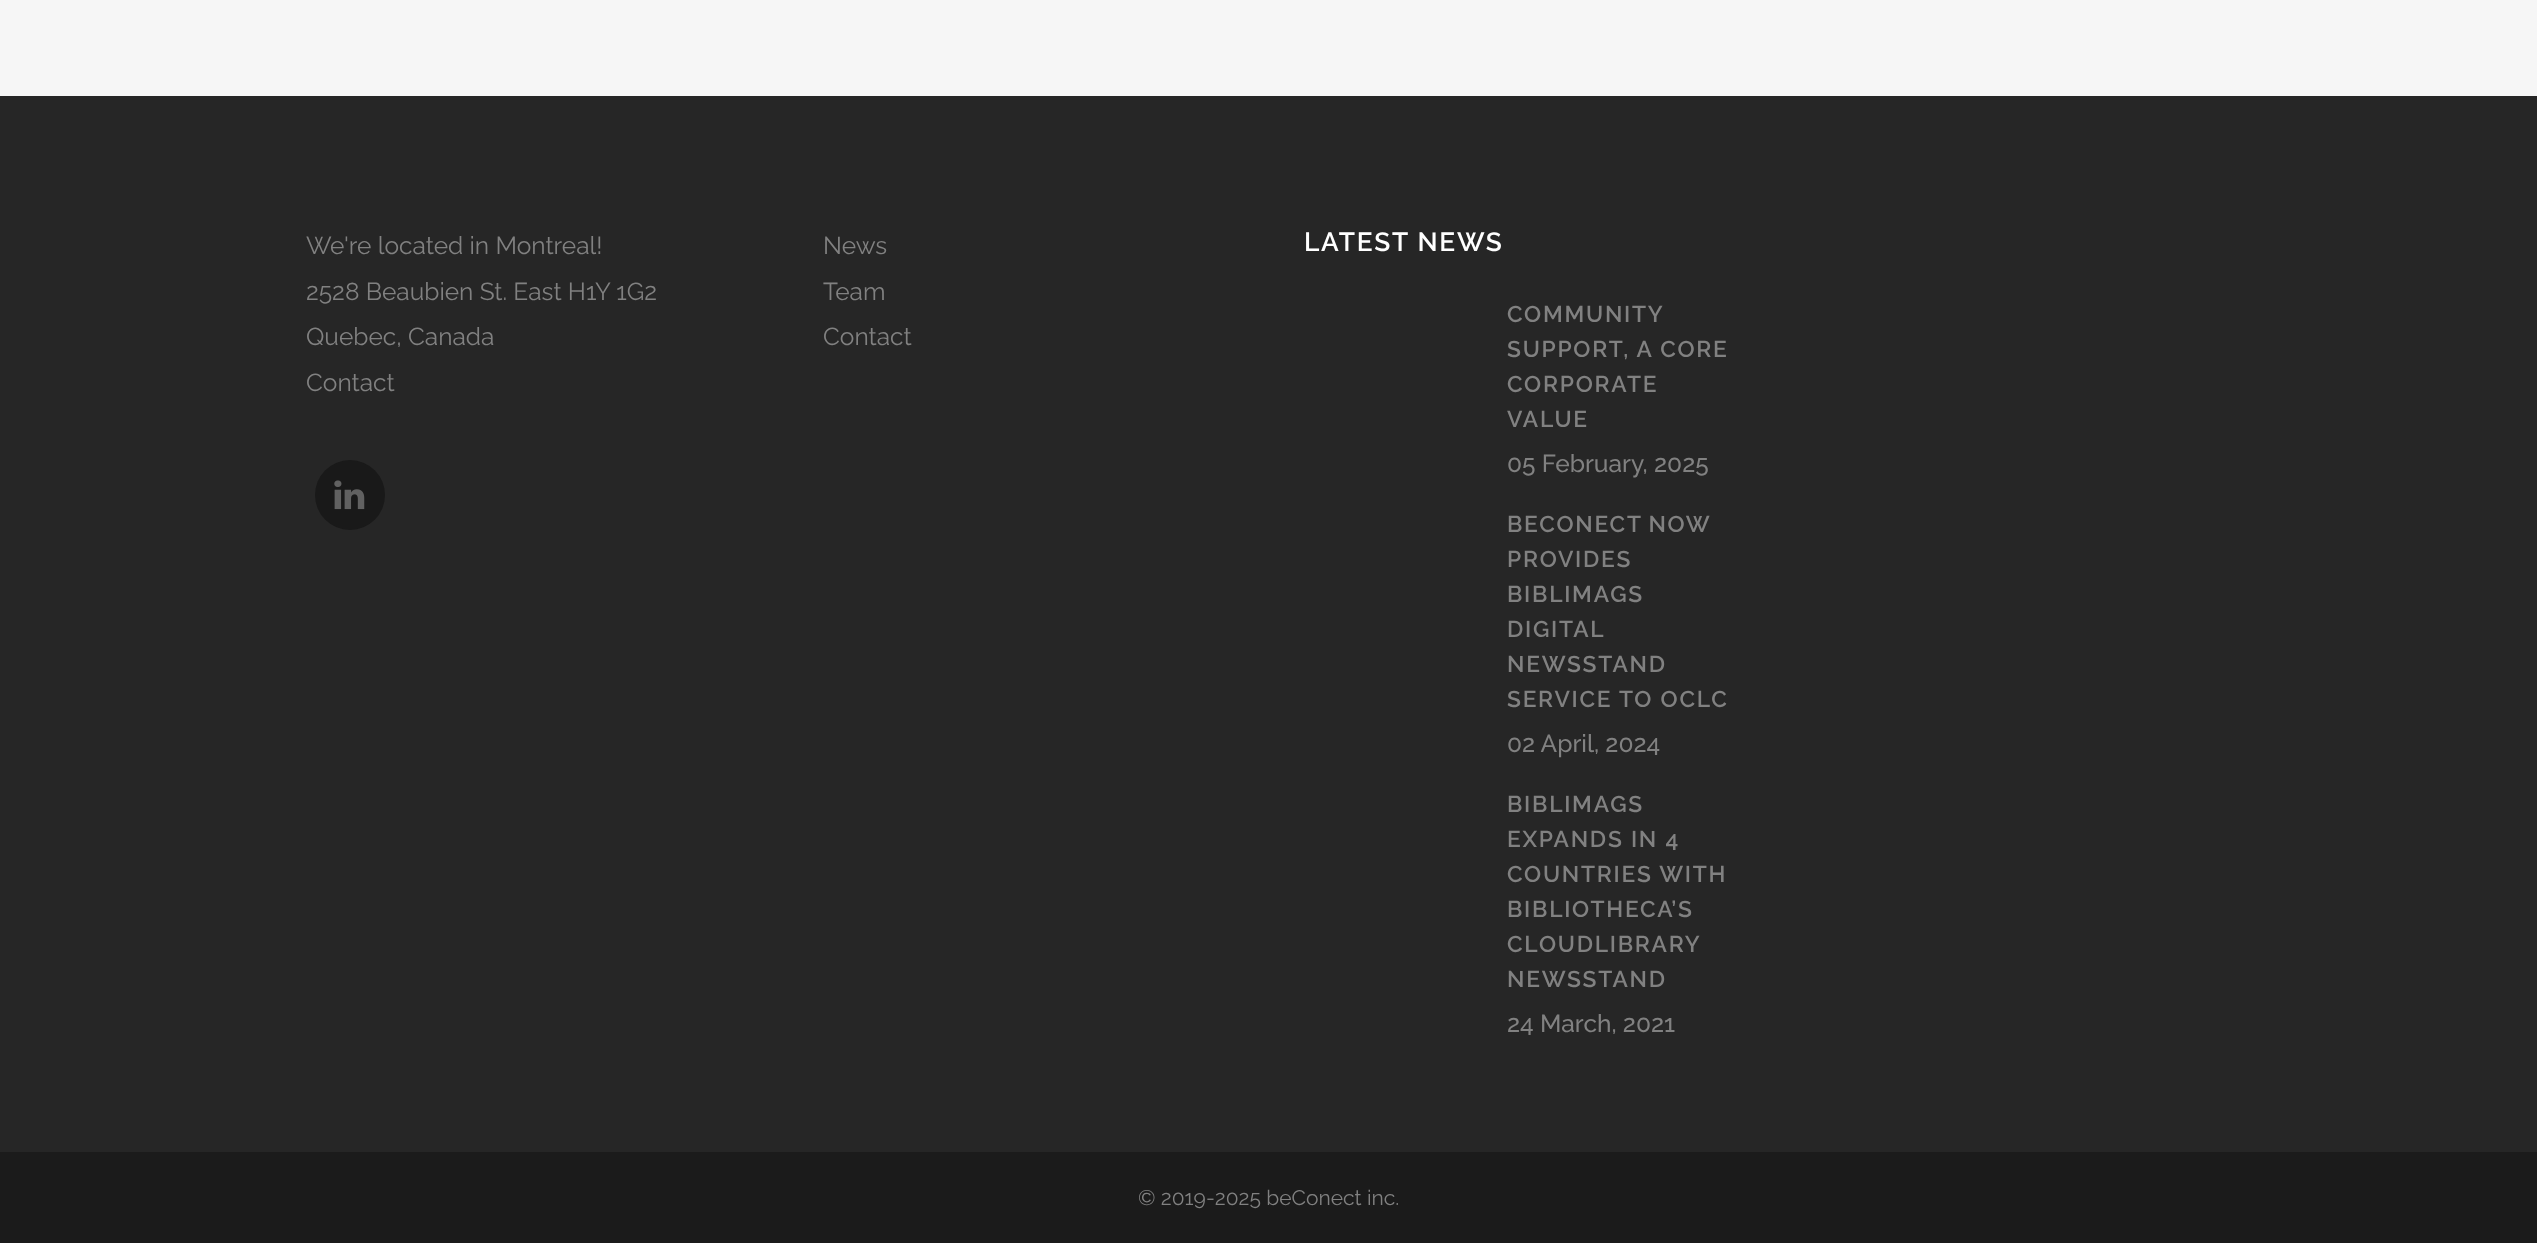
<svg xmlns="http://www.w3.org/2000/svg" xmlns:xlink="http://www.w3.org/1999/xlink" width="2537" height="1243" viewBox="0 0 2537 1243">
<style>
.cls-1{font:24.5px Raleway;fill:#818181}
.cls-2{font:600 26.25px Raleway;letter-spacing:1.75px;fill:#ffffff}
.cls-3{font:600 22.75px Raleway;letter-spacing:1.75px;fill:#818181}
.cls-4{font:500 24.5px Raleway;fill:#818181}
.cls-5{font:21px Raleway;fill:#818181}
</style>
<rect width="100%" height="100%" fill="#f6f6f6"/>
<rect fill="#262626" x="0" y="96" width="2537" height="1056"/>
<circle fill="#191919" cx="350" cy="495" r="35"/>
<image xlink:href="image0.png" x="334" y="480" width="31" height="30"/>
<rect fill="#1b1b1b" x="0" y="1152" width="2537" height="91"/>
<text class="cls-1"><tspan x="306" y="254">We're located in Montreal!</tspan><tspan x="306" y="300">2528 Beaubien St. East H1Y 1G2</tspan><tspan x="306" y="345">Quebec, Canada</tspan><tspan x="306" y="391">Contact</tspan></text>
<text class="cls-1"><tspan x="823" y="254">News</tspan><tspan x="823" y="300">Team</tspan><tspan x="823" y="345">Contact</tspan></text>
<text class="cls-2" x="1304" y="251">LATEST NEWS</text>
<text class="cls-3"><tspan x="1507" y="322">COMMUNITY</tspan><tspan x="1507" y="357">SUPPORT, A CORE</tspan><tspan x="1507" y="392">CORPORATE</tspan><tspan x="1507" y="427">VALUE</tspan></text>
<text class="cls-4" x="1507" y="472">05 February, 2025</text>
<text class="cls-3"><tspan x="1507" y="532" word-spacing="-1">BECONECT NOW</tspan><tspan x="1507" y="567">PROVIDES</tspan><tspan x="1507" y="602">BIBLIMAGS</tspan><tspan x="1507" y="637">DIGITAL</tspan><tspan x="1507" y="672">NEWSSTAND</tspan><tspan x="1507" y="707">SERVICE TO OCLC</tspan></text>
<text class="cls-4" x="1507" y="752">02 April, 2024</text>
<text class="cls-3"><tspan x="1507" y="812">BIBLIMAGS</tspan><tspan x="1507" y="847">EXPANDS IN 4</tspan><tspan x="1507" y="882">COUNTRIES WITH</tspan><tspan x="1507" y="917">BIBLIOTHECA’S</tspan><tspan x="1507" y="952">CLOUDLIBRARY</tspan><tspan x="1507" y="987">NEWSSTAND</tspan></text>
<text class="cls-4" x="1507" y="1032">24 March, 2021</text>
<text class="cls-5" x="1138" y="1205">© 2019-2025 beConect inc.</text>
</svg>
